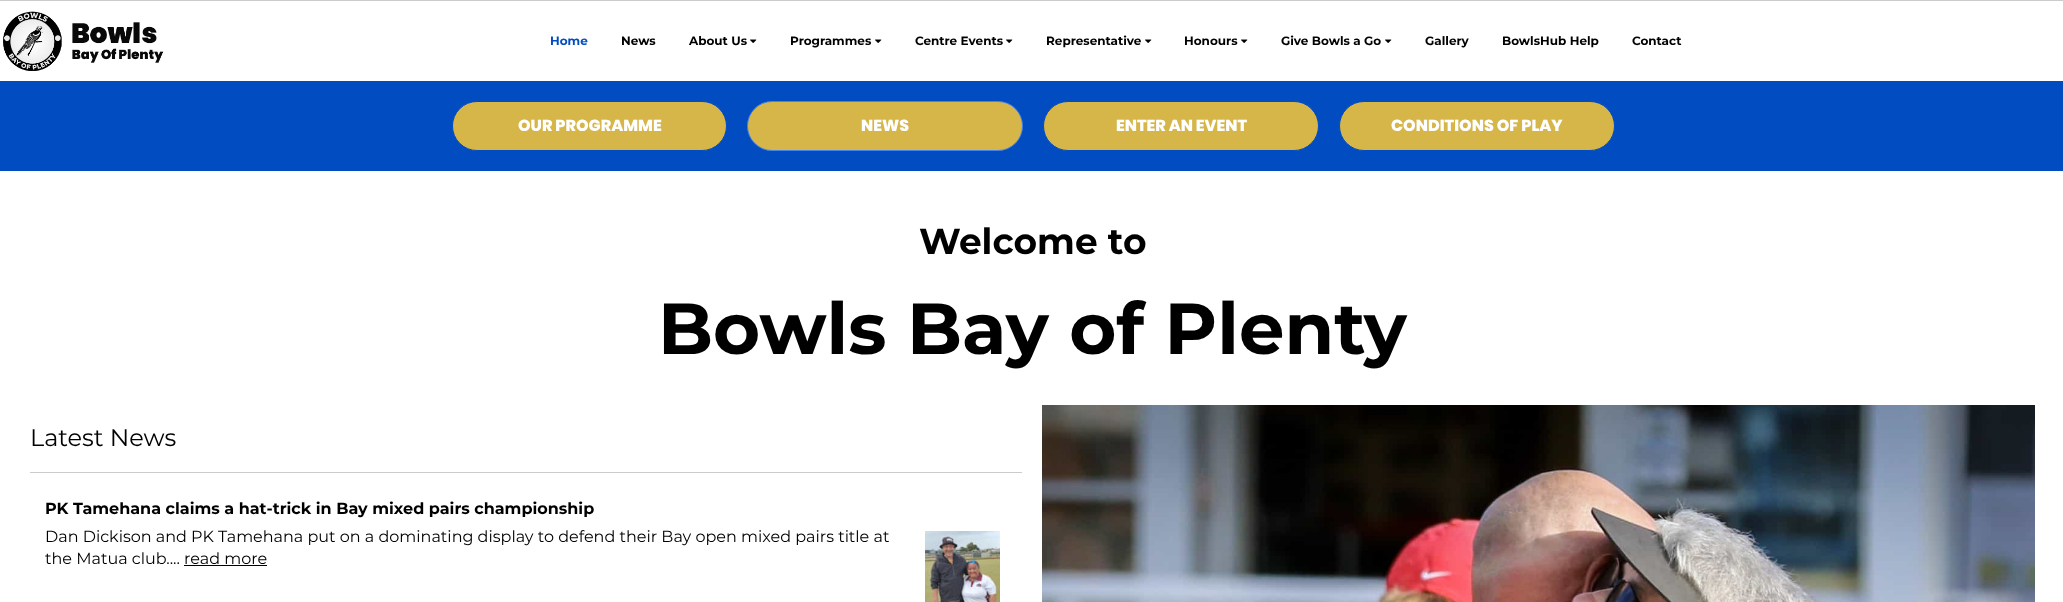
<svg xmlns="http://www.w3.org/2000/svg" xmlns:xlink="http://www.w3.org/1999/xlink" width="2063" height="602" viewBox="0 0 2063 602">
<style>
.cls-1{font:bold 12px Montserrat;fill:#024cc2}
.cls-2{font:bold 12px Montserrat;fill:#000000}
.cls-3{font:800 16px Poppins;fill:#ffffff}
.cls-4{font:bold 36px Montserrat;fill:#000000}
.cls-5{font:bold 72px Montserrat;fill:#000000}
.cls-6{font:24px Montserrat;fill:#000000}
.cls-7{font:bold 16px Montserrat;fill:#000000}
.cls-8{font:16px Montserrat;fill:#000000}
</style>
<rect width="100%" height="100%" fill="#ffffff"/>
<rect fill="#cccccc" x="0" y="0" width="2063" height="1"/>
<image xlink:href="image0.png" x="3" y="11" width="161" height="60"/>
<image xlink:href="image1.png" x="750" y="39" width="7" height="4"/>
<image xlink:href="image1.png" x="875" y="39" width="7" height="4"/>
<image xlink:href="image1.png" x="1006" y="39" width="7" height="4"/>
<image xlink:href="image1.png" x="1145" y="39" width="7" height="4"/>
<image xlink:href="image1.png" x="1241" y="39" width="7" height="4"/>
<image xlink:href="image1.png" x="1385" y="39" width="7" height="4"/>
<rect fill="#024cc2" x="0" y="81" width="2063" height="90"/>
<rect fill="#d6b549" stroke="#024cc2" x="452.5" y="101.5" width="274" height="49" rx="24.5"/>
<rect fill="#d6b549" stroke="#4683eb" x="747.5" y="101.5" width="275" height="49" rx="24.5"/>
<rect fill="#d6b549" stroke="#024cc2" x="1043.5" y="101.5" width="275" height="49" rx="24.5"/>
<rect fill="#d6b549" stroke="#024cc2" x="1339.5" y="101.5" width="275" height="49" rx="24.5"/>
<rect fill="#cccccc" x="30" y="472" width="992" height="1"/>
<image xlink:href="image2.png" x="925" y="531" width="75" height="71"/>
<rect fill="#000000" x="184" y="565" width="83" height="1"/>
<image xlink:href="image3.png" x="1042" y="405" width="993" height="197"/>
<text class="cls-1" x="550" y="45">Home</text>
<text class="cls-2" x="621" y="45">News</text>
<text class="cls-2" x="689" y="45">About Us</text>
<text class="cls-2" x="790" y="45">Programmes</text>
<text class="cls-2" x="915" y="45">Centre Events</text>
<text class="cls-2" x="1046" y="45">Representative</text>
<text class="cls-2" x="1184" y="45">Honours</text>
<text class="cls-2" x="1281" y="45">Give Bowls a Go</text>
<text class="cls-2" x="1425" y="45">Gallery</text>
<text class="cls-2" x="1502" y="45">BowlsHub Help</text>
<text class="cls-2" x="1632" y="45">Contact</text>
<text class="cls-3" x="518" y="131">OUR PROGRAMME</text>
<text class="cls-3" x="861" y="131">NEWS</text>
<text class="cls-3" x="1116" y="131">ENTER AN EVENT</text>
<text class="cls-3" x="1391" y="131">CONDITIONS OF PLAY</text>
<text class="cls-4" x="919" y="254">Welcome to</text>
<text class="cls-5" x="658" y="354">Bowls Bay of Plenty</text>
<text class="cls-6" x="30" y="446">Latest News</text>
<text class="cls-7" x="45" y="514">PK Tamehana claims a hat-trick in Bay mixed pairs championship</text>
<text class="cls-8"><tspan x="45" y="542">Dan Dickison and PK Tamehana put on a dominating display to defend their Bay open mixed pairs title at</tspan><tspan x="45" y="564">the Matua club.... read more</tspan></text>
</svg>
